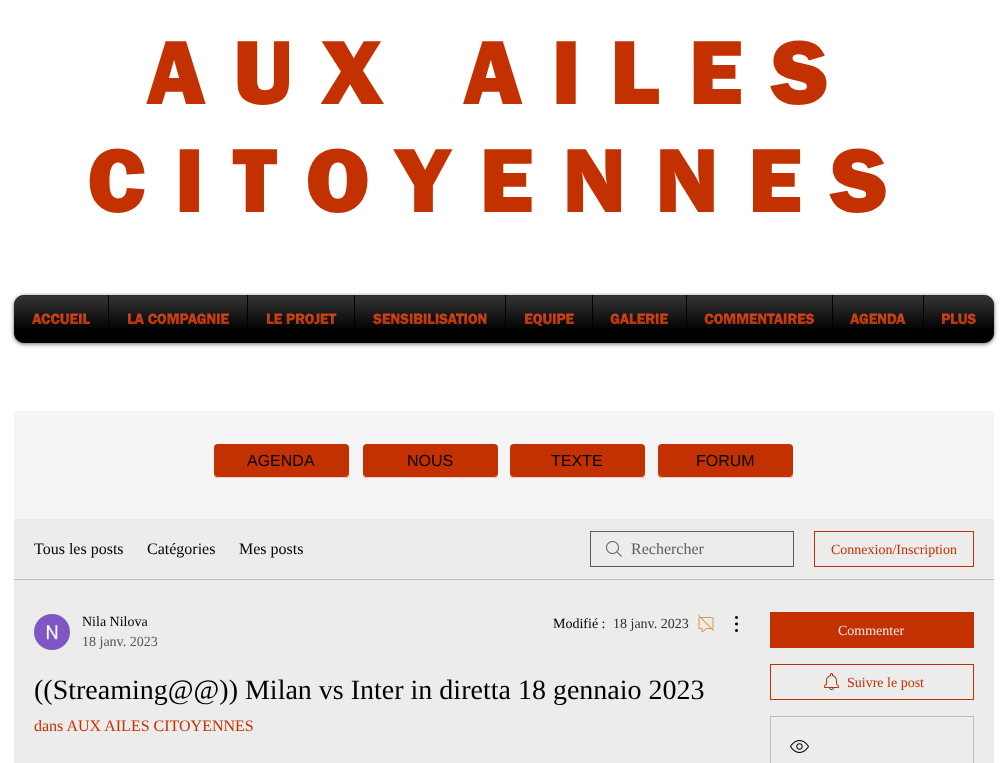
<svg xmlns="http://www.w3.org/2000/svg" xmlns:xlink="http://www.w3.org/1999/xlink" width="1007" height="763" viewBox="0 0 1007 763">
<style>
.cls-1{font:900 94px Franklin Gothic;letter-spacing:28.25px;fill:#c43100}
.cls-2{font:bold 15px Franklin Gothic;fill:#c43100}
.cls-3{font:16px Liberation Sans;fill:#000000}
.cls-4{font:16px Liberation Serif;fill:#000000}
.cls-5{font:16px Liberation Serif;fill:#5e5e5e}
.cls-6{font:14px Liberation Serif;fill:#c43100}
.cls-7{font:14px Liberation Serif;fill:#000000}
.cls-8{font:14px Liberation Serif;fill:#555555}
.cls-9{font:14px Liberation Serif;fill:#2f2f2f}
.cls-10{font:28px Liberation Serif;fill:#000000}
.cls-11{font:16px Liberation Serif;fill:#c43100}
.cls-12{font:14px Liberation Serif;fill:#ececec}
</style>
<rect width="100%" height="100%" fill="#ffffff"/>
<rect fill="#000000" fill-opacity="0.6" filter="blur(2px)" x="14" y="296" width="980" height="48" rx="10"/>
<image xlink:href="image0.png" x="14" y="295" width="980" height="10"/>
<path fill="#000000" d="M24 295H108V343H24C18.5 343 14 338.5 14 333V305C14 299.5 18.5 295 24 295Z"/>
<rect fill="#000000" x="108" y="295" width="815" height="48"/>
<path fill="#000000" d="M923 295H984C989.5 295 994 299.5 994 305V333C994 338.5 989.5 343 984 343H923Z"/>
<rect fill="#f5f5f5" x="14" y="411" width="980" height="108"/>
<rect fill="#c43100" x="214" y="444" width="135" height="34" rx="4"/>
<path fill="#ffffff" fill-opacity="0.75" d="M214 473V474C214 476 216 478 218 478H345C347 478 349 476 349 474V473C349 475 347 477 345 477H218C216 477 214 475 214 473Z"/>
<rect fill="#c43100" x="363" y="444" width="135" height="34" rx="4"/>
<path fill="#ffffff" fill-opacity="0.75" d="M363 473V474C363 476 365 478 367 478H494C496 478 498 476 498 474V473C498 475 496 477 494 477H367C365 477 363 475 363 473Z"/>
<rect fill="#c43100" x="510" y="444" width="135" height="34" rx="4"/>
<path fill="#ffffff" fill-opacity="0.75" d="M510 473V474C510 476 512 478 514 478H641C643 478 645 476 645 474V473C645 475 643 477 641 477H514C512 477 510 475 510 473Z"/>
<rect fill="#c43100" x="658" y="444" width="135" height="34" rx="4"/>
<path fill="#ffffff" fill-opacity="0.75" d="M658 473V474C658 476 660 478 662 478H789C791 478 793 476 793 474V473C793 475 791 477 789 477H662C660 477 658 475 658 473Z"/>
<rect fill="#ececec" x="14" y="519" width="980" height="244"/>
<rect fill="#bdbdbd" x="14" y="579" width="980" height="1"/>
<image xlink:href="image19.png" x="606" y="541" width="16" height="16"/>
<rect fill="none" stroke="#5e5e5e" x="590.5" y="531.5" width="203" height="35"/>
<rect fill="none" stroke="#c43100" x="814.5" y="531.5" width="159" height="35"/>
<image xlink:href="image20.png" x="34" y="614" width="36" height="36"/>
<image xlink:href="image21.png" x="698" y="615" width="16" height="18"/>
<image xlink:href="image22.png" x="735" y="616" width="3" height="16"/>
<rect fill="#c43100" x="770" y="612" width="204" height="36"/>
<rect fill="none" stroke="#c43100" x="770.5" y="664.5" width="203" height="35"/>
<image xlink:href="image23.png" x="824" y="673" width="15" height="17"/>
<rect fill="none" stroke="#bdbdbd" x="770.5" y="716.5" width="203" height="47"/>
<image xlink:href="image24.png" x="790" y="740" width="19" height="13"/>
<text class="cls-1" x="146" y="104">AUX AILES</text>
<text class="cls-1" x="87" y="212">CITOYENNES</text>
<text class="cls-2" x="32" y="324">ACCUEIL</text>
<image xlink:href="image1.png" x="14" y="295" width="94" height="33"/>
<image xlink:href="image2.png" x="32" y="317" width="57" height="7"/>
<text class="cls-2" x="127" y="324">LA COMPAGNIE</text>
<image xlink:href="image3.png" x="109" y="295" width="138" height="33"/>
<image xlink:href="image4.png" x="127" y="317" width="101" height="7"/>
<text class="cls-2" x="266" y="324">LE PROJET</text>
<image xlink:href="image5.png" x="248" y="295" width="106" height="33"/>
<image xlink:href="image6.png" x="266" y="317" width="67" height="7"/>
<text class="cls-2" x="373" y="324">SENSIBILISATION</text>
<image xlink:href="image7.png" x="355" y="295" width="150" height="33"/>
<image xlink:href="image8.png" x="373" y="317" width="113" height="7"/>
<text class="cls-2" x="524" y="324">EQUIPE</text>
<image xlink:href="image9.png" x="506" y="295" width="86" height="33"/>
<image xlink:href="image10.png" x="524" y="317" width="49" height="9"/>
<text class="cls-2" x="610" y="324">GALERIE</text>
<image xlink:href="image11.png" x="593" y="295" width="93" height="33"/>
<image xlink:href="image12.png" x="611" y="317" width="57" height="7"/>
<text class="cls-2" x="704" y="324">COMMENTAIRES</text>
<image xlink:href="image13.png" x="687" y="295" width="145" height="33"/>
<image xlink:href="image14.png" x="704" y="317" width="110" height="7"/>
<text class="cls-2" x="850" y="324">AGENDA</text>
<image xlink:href="image15.png" x="833" y="295" width="90" height="33"/>
<image xlink:href="image16.png" x="850" y="317" width="55" height="7"/>
<text class="cls-2" x="941" y="324">PLUS</text>
<image xlink:href="image17.png" x="924" y="295" width="70" height="33"/>
<image xlink:href="image18.png" x="942" y="317" width="33" height="7"/>
<text class="cls-3" x="247" y="466">AGENDA</text>
<text class="cls-3" x="407" y="466">NOUS</text>
<text class="cls-3" x="551" y="466">TEXTE</text>
<text class="cls-3" x="696" y="466">FORUM</text>
<text class="cls-4" x="34" y="554">Tous les posts</text>
<text class="cls-4" x="147" y="554">Catégories</text>
<text class="cls-4" x="239" y="554">Mes posts</text>
<text class="cls-5" x="631" y="554">Rechercher</text>
<text class="cls-6" x="831" y="554">Connexion/Inscription</text>
<text class="cls-7" x="82" y="626">Nila Nilova</text>
<text class="cls-8" x="82" y="646">18 janv. 2023</text>
<text class="cls-7" x="553" y="628">Modifié :</text>
<text class="cls-9" x="613" y="628">18 janv. 2023</text>
<text class="cls-10" x="34" y="699">((Streaming@@)) Milan vs Inter in diretta 18 gennaio 2023</text>
<text class="cls-11" x="34" y="731">dans AUX AILES CITOYENNES</text>
<text class="cls-12" x="838" y="635">Commenter</text>
<text class="cls-6" x="847" y="687">Suivre le post</text>
</svg>
